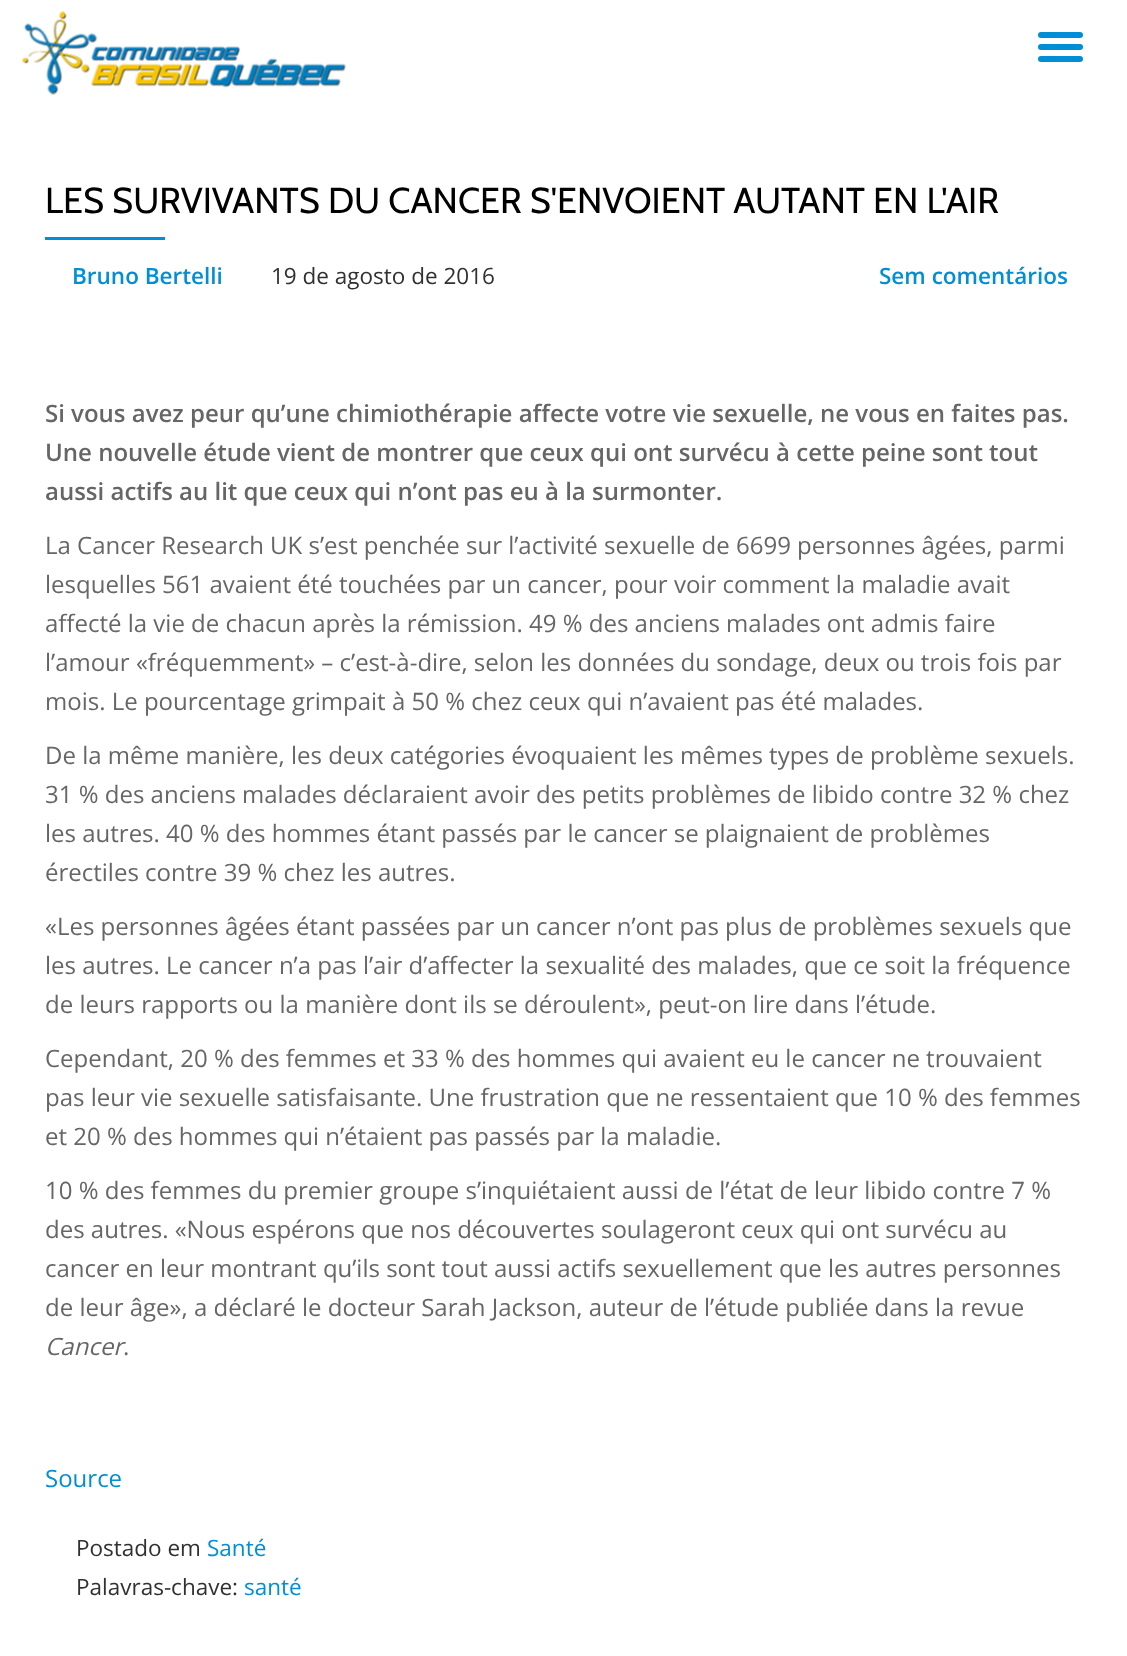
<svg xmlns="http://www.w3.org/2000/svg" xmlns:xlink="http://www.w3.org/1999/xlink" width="1127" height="1656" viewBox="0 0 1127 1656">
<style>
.cls-1{font:36px Cabin;fill:#000000}
.cls-2{font:600 22.5px Open Sans;fill:#008ed6}
.cls-3{font:22.5px Open Sans;fill:#313131}
.cls-4{font:600 24px Open Sans;fill:#666666}
.cls-5{font:24px Open Sans;fill:#666666}
.cls-6{font:italic 24px Open Sans;fill:#666666}
.cls-7{font:24px Open Sans;fill:#008ed6}
.cls-8{font:22.5px Open Sans;fill:#008ed6}
</style>
<rect width="100%" height="100%" fill="#ffffff"/>
<image xlink:href="image0.png" x="22" y="11" width="324" height="84"/>
<rect fill="#008ed6" x="1038" y="32" width="45" height="6" rx="3"/>
<rect fill="#008ed6" x="1038" y="44" width="45" height="6" rx="3"/>
<rect fill="#008ed6" x="1038" y="56" width="45" height="6" rx="3"/>
<rect fill="#008ed6" x="45" y="237" width="120" height="3"/>
<text class="cls-1" x="45" y="213">LES SURVIVANTS DU CANCER S'ENVOIENT AUTANT EN L'AIR</text>
<text class="cls-2" x="72" y="284">Bruno Bertelli</text>
<text class="cls-3" x="271" y="284">19 de agosto de 2016</text>
<text class="cls-2" x="879" y="284">Sem comentários</text>
<text class="cls-4"><tspan x="45" y="422">Si vous avez peur qu’une chimiothérapie affecte votre vie sexuelle, ne vous en faites pas.</tspan><tspan x="45" y="461">Une nouvelle étude vient de montrer que ceux qui ont survécu à cette peine sont tout</tspan><tspan x="45" y="500">aussi actifs au lit que ceux qui n’ont pas eu à la surmonter.</tspan></text>
<text class="cls-5"><tspan x="45" y="554">La Cancer Research UK s’est penchée sur l’activité sexuelle de 6699 personnes âgées, parmi</tspan><tspan x="45" y="593">lesquelles 561 avaient été touchées par un cancer, pour voir comment la maladie avait</tspan><tspan x="45" y="632">affecté la vie de chacun après la rémission. 49 % des anciens malades ont admis faire</tspan><tspan x="45" y="671">l’amour «fréquemment» – c’est-à-dire, selon les données du sondage, deux ou trois fois par</tspan><tspan x="45" y="710">mois. Le pourcentage grimpait à 50 % chez ceux qui n’avaient pas été malades.</tspan></text>
<text class="cls-5"><tspan x="45" y="764">De la même manière, les deux catégories évoquaient les mêmes types de problème sexuels.</tspan><tspan x="45" y="803">31 % des anciens malades déclaraient avoir des petits problèmes de libido contre 32 % chez</tspan><tspan x="45" y="842">les autres. 40 % des hommes étant passés par le cancer se plaignaient de problèmes</tspan><tspan x="45" y="881">érectiles contre 39 % chez les autres.</tspan></text>
<text class="cls-5"><tspan x="45" y="935">«Les personnes âgées étant passées par un cancer n’ont pas plus de problèmes sexuels que</tspan><tspan x="45" y="974">les autres. Le cancer n’a pas l’air d’affecter la sexualité des malades, que ce soit la fréquence</tspan><tspan x="45" y="1013">de leurs rapports ou la manière dont ils se déroulent», peut-on lire dans l’étude.</tspan></text>
<text class="cls-5"><tspan x="45" y="1067">Cependant, 20 % des femmes et 33 % des hommes qui avaient eu le cancer ne trouvaient</tspan><tspan x="45" y="1106">pas leur vie sexuelle satisfaisante. Une frustration que ne ressentaient que 10 % des femmes</tspan><tspan x="45" y="1145">et 20 % des hommes qui n’étaient pas passés par la maladie.</tspan></text>
<text class="cls-5"><tspan x="45" y="1199">10 % des femmes du premier groupe s’inquiétaient aussi de l’état de leur libido contre 7 %</tspan><tspan x="45" y="1238">des autres. «Nous espérons que nos découvertes soulageront ceux qui ont survécu au</tspan><tspan x="45" y="1277">cancer en leur montrant qu’ils sont tout aussi actifs sexuellement que les autres personnes</tspan><tspan x="45" y="1316">de leur âge», a déclaré le docteur Sarah Jackson, auteur de l’étude publiée dans la revue</tspan></text>
<text class="cls-6" x="45" y="1355">Cancer</text>
<text class="cls-5" x="123" y="1355">.</text>
<text class="cls-7" x="45" y="1487">Source</text>
<text class="cls-3" x="76" y="1556">Postado em</text>
<text class="cls-8" x="207" y="1556">Santé</text>
<text class="cls-3" x="76" y="1595">Palavras-chave:</text>
<text class="cls-8" x="244" y="1595">santé</text>
</svg>
